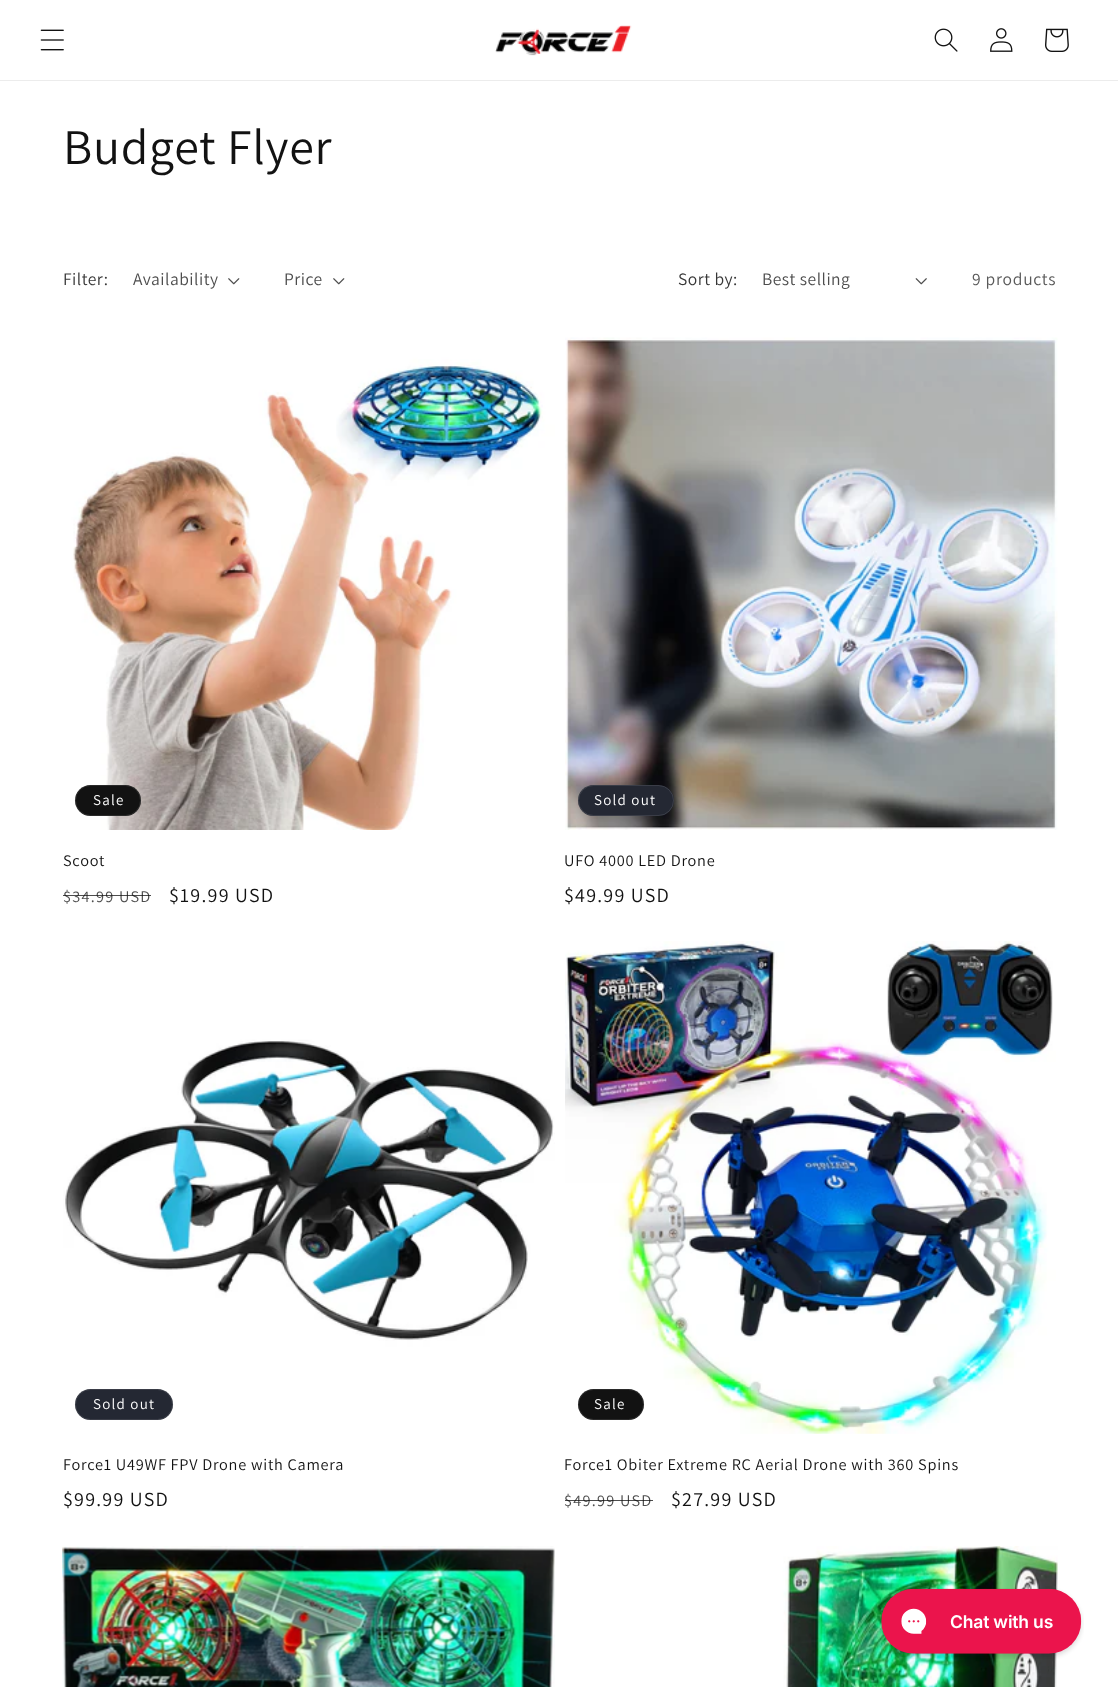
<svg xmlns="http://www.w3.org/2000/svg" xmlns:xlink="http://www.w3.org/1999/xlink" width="1118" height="1687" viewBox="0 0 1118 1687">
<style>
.cls-1{font:50px Assistant;letter-spacing:0.75px;fill:#121212}
.cls-2{font:17.5px Assistant;letter-spacing:0.5px;fill:#363636}
.cls-3{font:17.5px Assistant;letter-spacing:0.5px;fill:#4d4d4d}
.cls-4{font:17.5px Assistant;letter-spacing:0.75px;fill:#595959}
.cls-5{font:15px Assistant;letter-spacing:1.25px;fill:#ffffff}
.cls-6{font:16.25px Assistant;letter-spacing:0.75px;fill:#121212}
.cls-7{font:16.25px Assistant;letter-spacing:1.25px;fill:#4d4d4d}
.cls-8{font:20px Assistant;letter-spacing:1.25px;fill:#121212}
</style>
<rect width="100%" height="100%" fill="#ffffff"/>
<rect fill="#ececec" x="0" y="80" width="1118" height="1"/>
<image xlink:href="image0.png" x="40" y="29" width="24" height="22"/>
<image xlink:href="image1.png" x="495" y="25" width="137" height="31"/>
<image xlink:href="image2.png" x="934" y="28" width="24" height="24"/>
<image xlink:href="image3.png" x="990" y="28" width="23" height="24"/>
<image xlink:href="image4.png" x="1045" y="28" width="24" height="24"/>
<image xlink:href="image5.png" x="228" y="278" width="12" height="7"/>
<image xlink:href="image5.png" x="333" y="278" width="12" height="7"/>
<image xlink:href="image6.png" x="915" y="278" width="12" height="7"/>
<image xlink:href="image7.png" x="63" y="338" width="492" height="492"/>
<rect fill="#121212" x="75" y="785" width="66" height="31" rx="15.5"/>
<rect fill="none" stroke="#ffffff" stroke-opacity="0.1" x="75.5" y="785.5" width="65" height="30" rx="15"/>
<image xlink:href="image8.png" x="565" y="337" width="493" height="493"/>
<rect fill="#242833" x="578" y="785" width="96" height="31" rx="15.5"/>
<rect fill="none" stroke="#ffffff" stroke-opacity="0.1" x="578.5" y="785.5" width="95" height="30" rx="15"/>
<image xlink:href="image9.png" x="63" y="941" width="492" height="493"/>
<rect fill="#242833" x="75" y="1389" width="98" height="31" rx="15.5"/>
<rect fill="none" stroke="#ffffff" stroke-opacity="0.1" x="75.5" y="1389.5" width="97" height="30" rx="15"/>
<image xlink:href="image10.png" x="565" y="941" width="491" height="493"/>
<rect fill="#121212" x="578" y="1389" width="66" height="31" rx="15.5"/>
<rect fill="none" stroke="#ffffff" stroke-opacity="0.1" x="578.5" y="1389.5" width="65" height="30" rx="15"/>
<image xlink:href="image11.png" x="62" y="1546" width="493" height="141"/>
<image xlink:href="image12.png" x="565" y="1546" width="493" height="141"/>
<image xlink:href="image13.png" x="879" y="1588" width="205" height="71"/>
<text class="cls-1" x="63" y="164">Budget Flyer</text>
<text class="cls-2" x="63" y="285">Filter:</text>
<text class="cls-3" x="133" y="285">Availability</text>
<text class="cls-3" x="284" y="285">Price</text>
<text class="cls-2" x="678" y="285">Sort by:</text>
<text class="cls-3" x="762" y="285">Best selling</text>
<text class="cls-4" x="972" y="285">9 products</text>
<text class="cls-5" x="93" y="805">Sale</text>
<text class="cls-6" x="63" y="866">Scoot</text>
<text class="cls-7" x="63" y="902">$34.99 USD</text>
<rect fill="#121212" fill-opacity="0.75" x="63" y="895" width="88" height="1"/>
<text class="cls-8" x="169" y="902">$19.99 USD</text>
<text class="cls-5" x="594" y="805">Sold out</text>
<text class="cls-6" x="564" y="866">UFO 4000 LED Drone</text>
<text class="cls-8" x="564" y="902">$49.99 USD</text>
<text class="cls-5" x="93" y="1409">Sold out</text>
<text class="cls-6" x="63" y="1470">Force1 U49WF FPV Drone with Camera</text>
<text class="cls-8" x="63" y="1506">$99.99 USD</text>
<text class="cls-5" x="594" y="1409">Sale</text>
<text class="cls-6" x="564" y="1470">Force1 Obiter Extreme RC Aerial Drone with 360 Spins</text>
<text class="cls-7" x="564" y="1506">$49.99 USD</text>
<rect fill="#121212" fill-opacity="0.75" x="565" y="1500" width="88" height="1"/>
<text class="cls-8" x="671" y="1506">$27.99 USD</text>
</svg>
